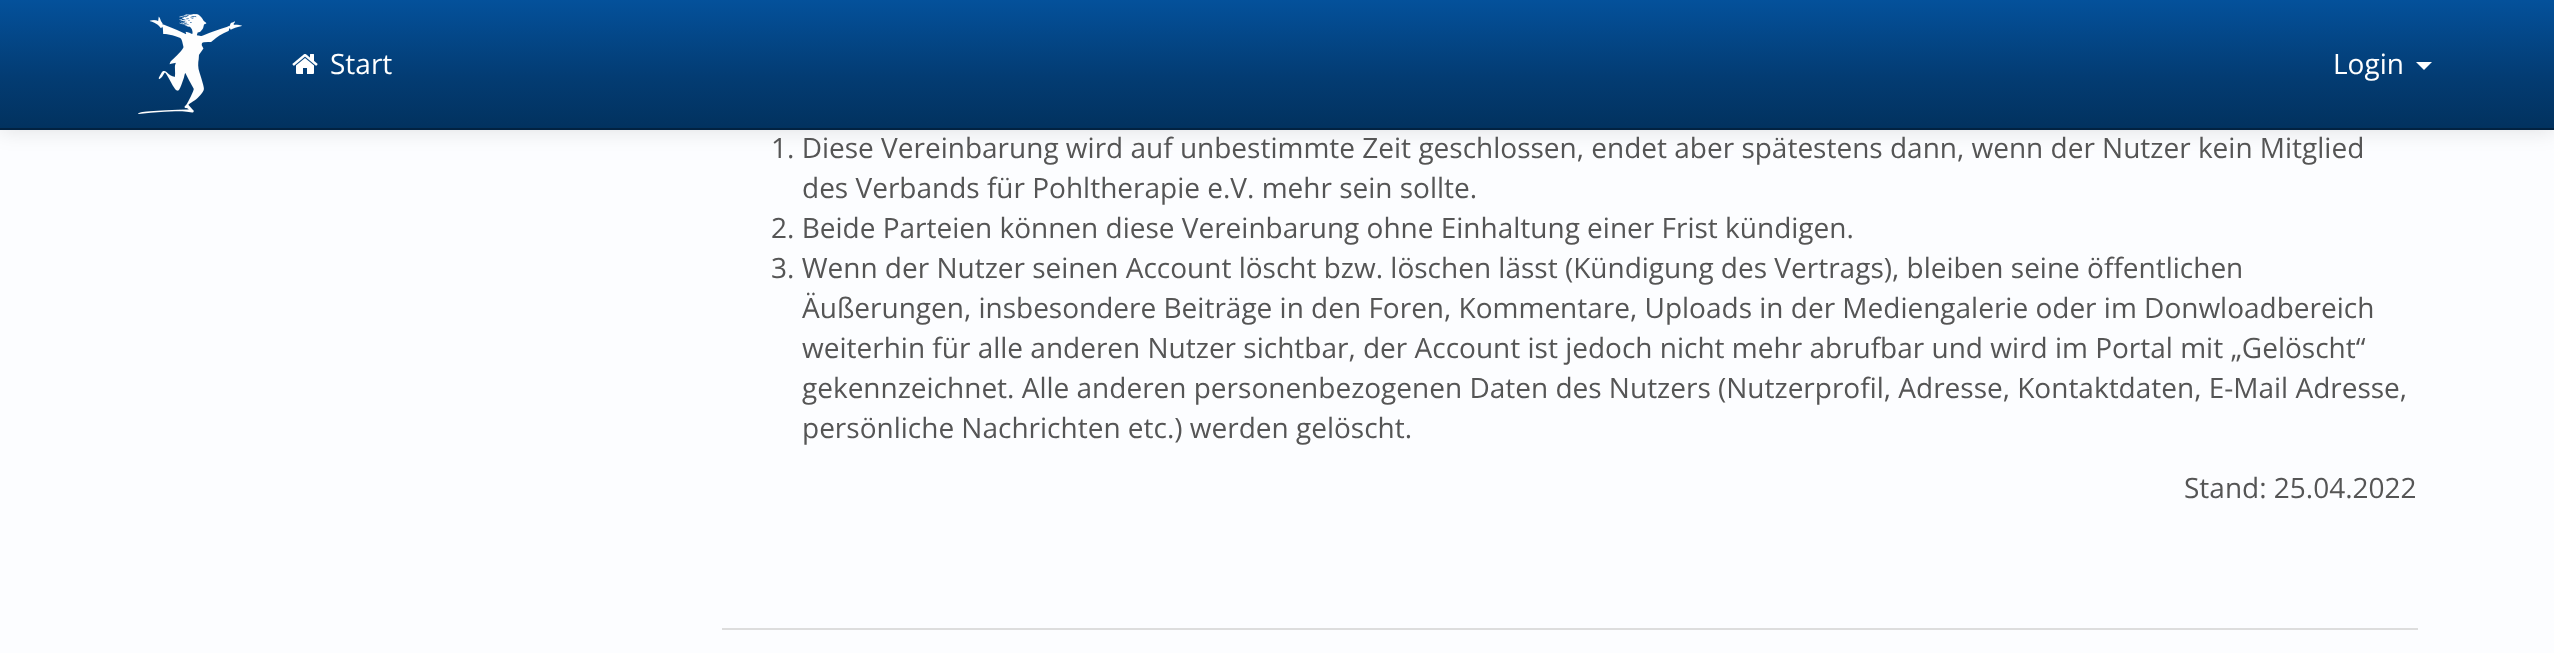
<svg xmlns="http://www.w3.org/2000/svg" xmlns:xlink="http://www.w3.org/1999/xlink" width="2554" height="653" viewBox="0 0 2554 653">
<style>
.cls-1{font:28px Open Sans;fill:#ffffff}
.cls-2{font:28px Open Sans;fill:#555555}
</style>
<defs>
<linearGradient id="g1" gradientUnits="userSpaceOnUse" x1="1277" y1="0" x2="1277" y2="128"><stop offset="0" stop-color="#04519b"/><stop offset="0.6" stop-color="#033c73"/><stop offset="1" stop-color="#02325f"/></linearGradient>
</defs>
<rect width="100%" height="100%" fill="#fcfdff"/>
<rect fill="#000000" fill-opacity="0.1" filter="blur(10px)" x="0" y="2" width="2554" height="130"/>
<rect fill="url(#g1)" x="0" y="0" width="2554" height="128"/>
<rect fill="#022241" x="0" y="128" width="2554" height="2"/>
<image xlink:href="image0.png" x="138" y="14" width="104" height="100"/>
<image xlink:href="image1.png" x="292" y="54" width="26" height="20"/>
<path fill="#ffffff" d="M2416 62H2432L2424 70Z"/>
<rect fill="#dddddd" x="722" y="628" width="1696" height="2"/>
<text class="cls-1" x="330" y="74">Start</text>
<text class="cls-1" x="2333" y="74">Login</text>
<text class="cls-2" x="771" y="158">1. Diese Vereinbarung wird auf unbestimmte Zeit geschlossen, endet aber spätestens dann, wenn der Nutzer kein Mitglied</text>
<text class="cls-2" x="802" y="198">des Verbands für Pohltherapie e.V. mehr sein sollte.</text>
<text class="cls-2"><tspan x="771" y="238">2. Beide Parteien können diese Vereinbarung ohne Einhaltung einer Frist kündigen.</tspan><tspan x="771" y="278">3. Wenn der Nutzer seinen Account löscht bzw. löschen lässt (Kündigung des Vertrags), bleiben seine öffentlichen</tspan></text>
<text class="cls-2"><tspan x="802" y="318">Äußerungen, insbesondere Beiträge in den Foren, Kommentare, Uploads in der Mediengalerie oder im Donwloadbereich</tspan><tspan x="802" y="358">weiterhin für alle anderen Nutzer sichtbar, der Account ist jedoch nicht mehr abrufbar und wird im Portal mit „Gelöscht“</tspan><tspan x="802" y="398">gekennzeichnet. Alle anderen personenbezogenen Daten des Nutzers (Nutzerprofil, Adresse, Kontaktdaten, E-Mail Adresse,</tspan><tspan x="802" y="438">persönliche Nachrichten etc.) werden gelöscht.</tspan></text>
<text class="cls-2" x="2184" y="498">Stand: 25.04.2022</text>
</svg>
